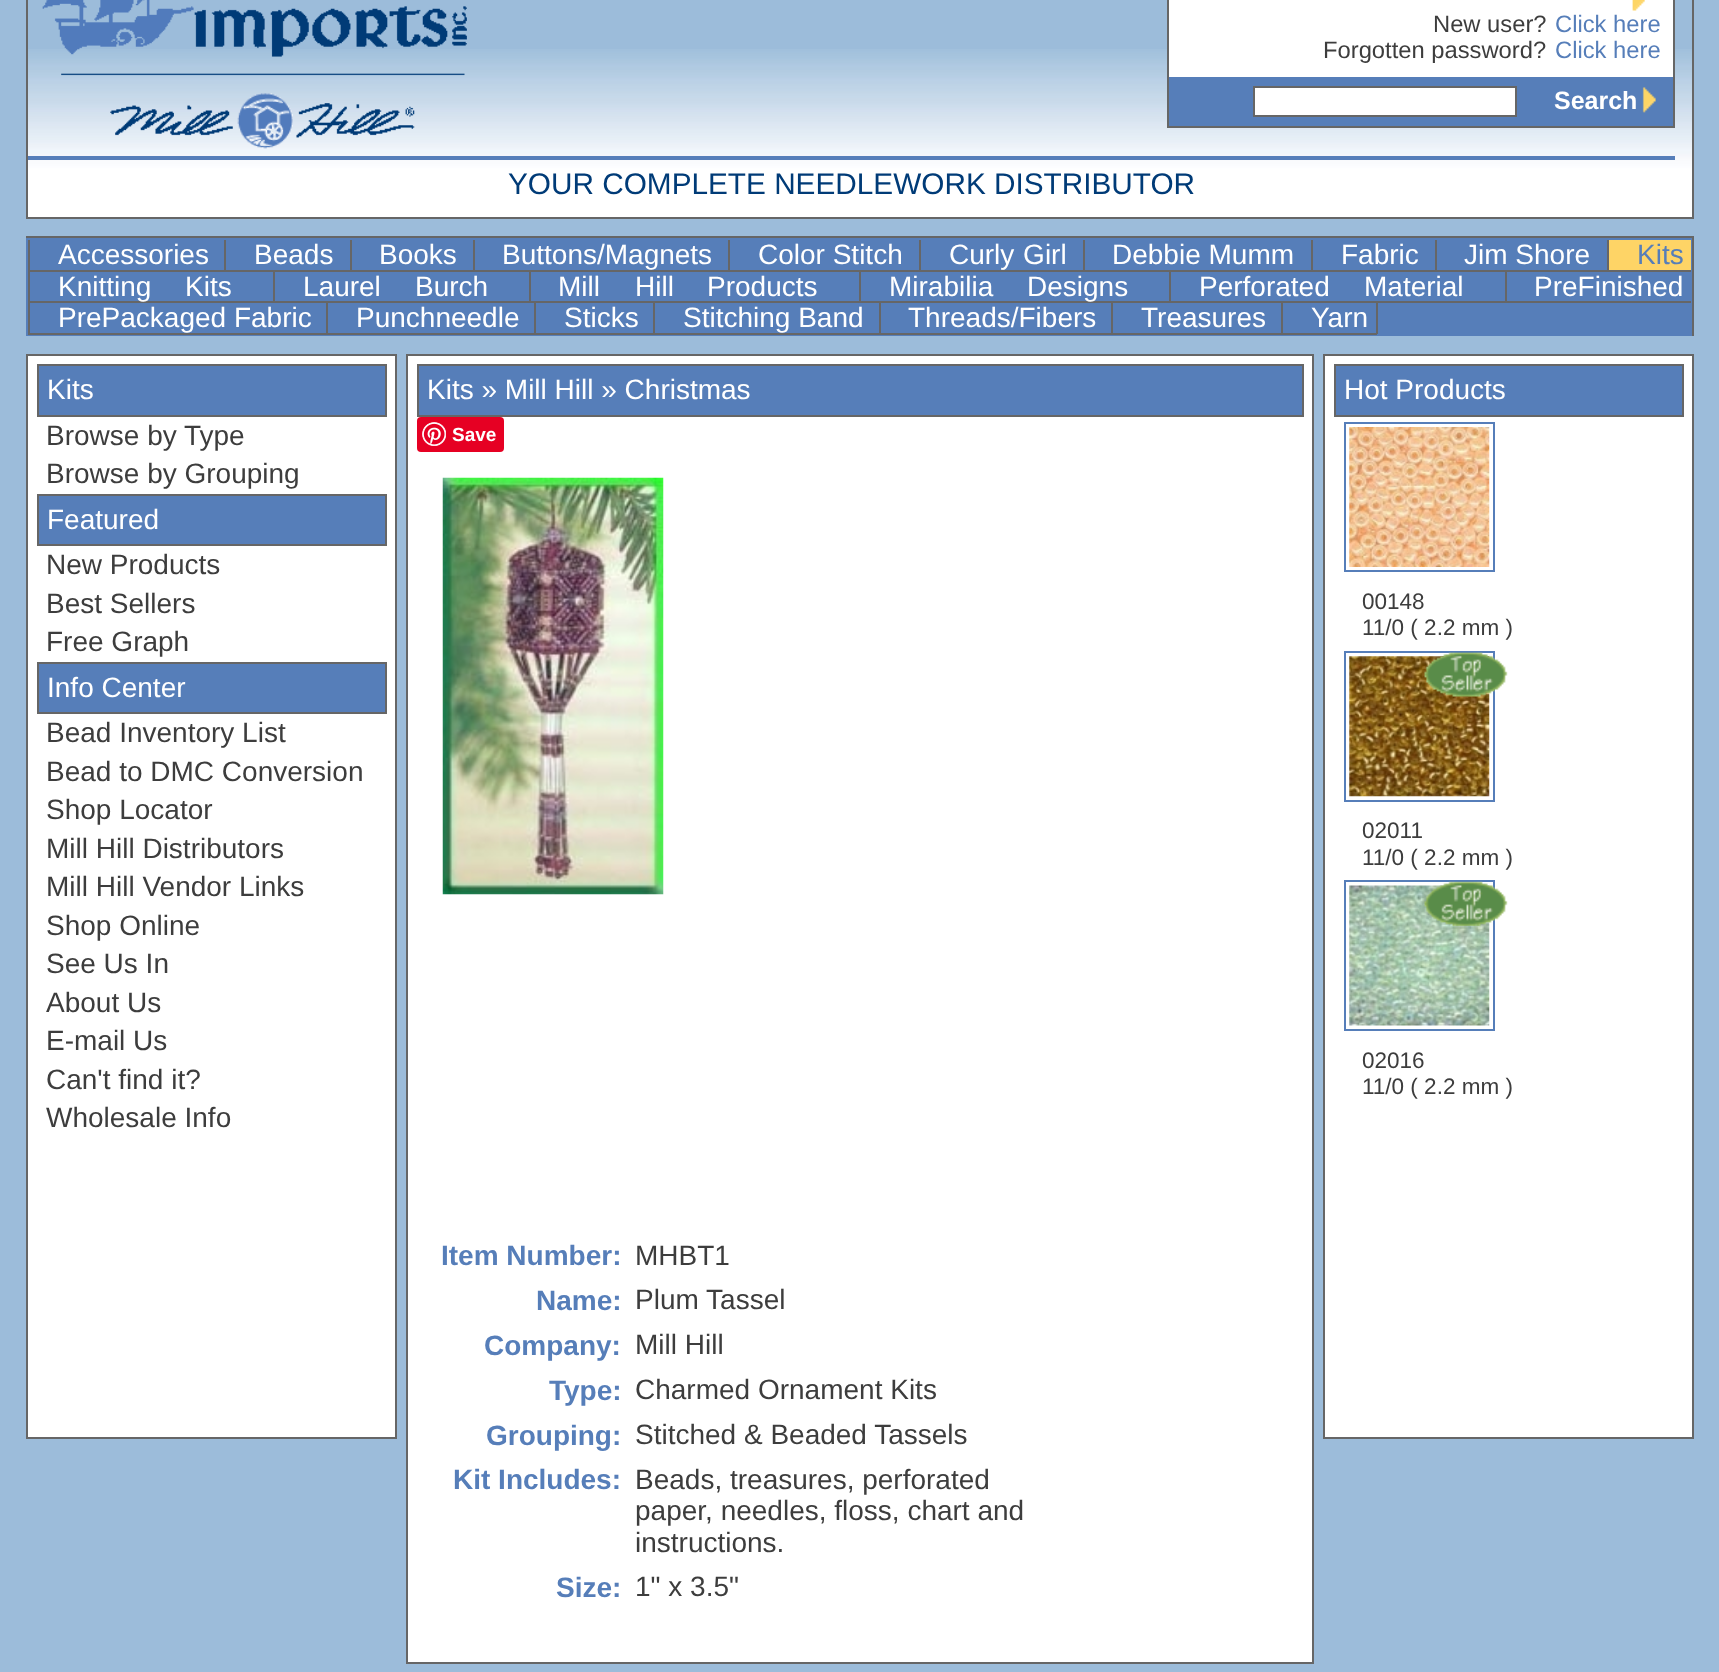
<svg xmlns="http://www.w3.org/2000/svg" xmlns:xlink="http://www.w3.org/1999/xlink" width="1719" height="1672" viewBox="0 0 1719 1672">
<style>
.cls-1{font:23.75px Liberation Sans;fill:#3d3d3d}
.cls-2{font:23.75px Liberation Sans;fill:#567eb9}
.cls-3{font:bold 25px Liberation Sans;fill:#ffffff}
.cls-4{font:29.75px Liberation Sans;fill:#003b77}
.cls-5{font:28px Liberation Sans;fill:#ffffff}
.cls-6{font:28px Liberation Sans;fill:#567eb9}
.cls-7{font:28px Liberation Sans;fill:#3d3d3d}
.cls-8{font:bold 19px Liberation Sans;fill:#ffffff}
.cls-9{font:bold 28px Liberation Sans;fill:#567eb9}
.cls-10{font:22.5px Liberation Sans;fill:#3d3d3d}
</style>
<rect width="100%" height="100%" fill="#9cbcda"/>
<image xlink:href="image0.png" x="28" y="49" width="1664" height="168"/>
<rect fill="#666666" x="1692" y="0" width="2" height="219"/>
<rect fill="#666666" x="26" y="217" width="1668" height="2"/>
<rect fill="#666666" x="26" y="0" width="2" height="219"/>
<image xlink:href="image1.png" x="42" y="0" width="425" height="149"/>
<rect fill="#ffffff" x="1169" y="0" width="504" height="77"/>
<rect fill="none" stroke="#666666" stroke-width="2" x="1168" y="-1" width="506" height="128"/>
<image xlink:href="image2.png" x="1632" y="0" width="13" height="11"/>
<rect fill="#567eb9" x="1169" y="77" width="504" height="49"/>
<rect fill="#ffffff" stroke="#666666" stroke-width="2" x="1254" y="87" width="262" height="29"/>
<image xlink:href="image3.png" x="1642" y="87" width="14" height="26"/>
<rect fill="#567eb9" x="28" y="156" width="1647" height="4"/>
<rect fill="#567eb9" x="26" y="238" width="1666" height="98"/>
<rect fill="#666666" x="26" y="236" width="1668" height="2"/>
<rect fill="#666666" x="1692" y="236" width="2" height="100"/>
<rect fill="#666666" x="28" y="270" width="1663" height="2"/>
<rect fill="#666666" x="28" y="240" width="2" height="31"/>
<rect fill="#666666" x="224" y="240" width="2" height="31"/>
<rect fill="#666666" x="350" y="240" width="2" height="31"/>
<rect fill="#666666" x="473" y="240" width="2" height="31"/>
<rect fill="#666666" x="728" y="240" width="2" height="31"/>
<rect fill="#666666" x="919" y="240" width="2" height="31"/>
<rect fill="#666666" x="1083" y="240" width="2" height="31"/>
<rect fill="#666666" x="1311" y="240" width="2" height="31"/>
<rect fill="#666666" x="1435" y="240" width="2" height="31"/>
<rect fill="#fed466" x="1609" y="240" width="82" height="30"/>
<rect fill="#666666" x="1607" y="240" width="2" height="31"/>
<rect fill="#666666" x="28" y="301" width="1663" height="2"/>
<rect fill="#666666" x="28" y="271" width="2" height="32"/>
<rect fill="#666666" x="273" y="271" width="2" height="32"/>
<rect fill="#666666" x="529" y="271" width="2" height="32"/>
<rect fill="#666666" x="859" y="271" width="2" height="32"/>
<rect fill="#666666" x="1169" y="271" width="2" height="32"/>
<rect fill="#666666" x="1505" y="271" width="2" height="32"/>
<rect fill="#666666" x="28" y="333" width="1253" height="2"/>
<rect fill="#666666" x="28" y="303" width="2" height="31"/>
<rect fill="#666666" x="326" y="303" width="2" height="31"/>
<rect fill="#666666" x="534" y="303" width="2" height="31"/>
<rect fill="#666666" x="653" y="303" width="2" height="31"/>
<rect fill="#666666" x="879" y="303" width="2" height="31"/>
<rect fill="#666666" x="1111" y="303" width="2" height="31"/>
<rect fill="#666666" x="1376" y="303" width="2" height="31"/>
<rect fill="#666666" x="1281" y="333" width="96" height="2"/>
<rect fill="#666666" x="1281" y="303" width="2" height="31"/>
<rect fill="#ffffff" stroke="#666666" stroke-width="2" x="27" y="355" width="369" height="1083"/>
<rect fill="#567eb9" stroke="#666666" stroke-width="2" x="38" y="365" width="348" height="51"/>
<rect fill="#567eb9" stroke="#666666" stroke-width="2" x="38" y="495" width="348" height="50"/>
<rect fill="#567eb9" stroke="#666666" stroke-width="2" x="38" y="663" width="348" height="50"/>
<rect fill="#ffffff" stroke="#666666" stroke-width="2" x="407" y="355" width="906" height="1308"/>
<rect fill="#567eb9" stroke="#666666" stroke-width="2" x="418" y="365" width="885" height="51"/>
<rect fill="#e60023" x="417" y="417" width="87" height="35" rx="4"/>
<image xlink:href="image4.png" x="422" y="422" width="24" height="24"/>
<image xlink:href="image5.png" x="442" y="477" width="222" height="418"/>
<rect fill="#ffffff" stroke="#666666" stroke-width="2" x="1324" y="355" width="369" height="1083"/>
<rect fill="#567eb9" stroke="#666666" stroke-width="2" x="1335" y="365" width="348" height="51"/>
<rect fill="none" stroke="#567eb9" stroke-width="2" x="1345" y="423" width="149" height="148"/>
<image xlink:href="image6.png" x="1349" y="427" width="141" height="140"/>
<rect fill="none" stroke="#567eb9" stroke-width="2" x="1345" y="652" width="149" height="149"/>
<image xlink:href="image7.png" x="1349" y="656" width="141" height="141"/>
<image xlink:href="image8.png" x="1424" y="652" width="84" height="45"/>
<rect fill="none" stroke="#567eb9" stroke-width="2" x="1345" y="881" width="149" height="149"/>
<image xlink:href="image9.png" x="1349" y="885" width="141" height="141"/>
<image xlink:href="image10.png" x="1424" y="881" width="84" height="45"/>
<text class="cls-1" x="1433" y="32">New user?</text>
<text class="cls-2" x="1555" y="32">Click here</text>
<text class="cls-1" x="1323" y="58">Forgotten password?</text>
<text class="cls-2" x="1555" y="58">Click here</text>
<text class="cls-3" x="1554" y="109">Search</text>
<text class="cls-4" x="508" y="194">YOUR COMPLETE NEEDLEWORK DISTRIBUTOR</text>
<text class="cls-5" x="58" y="264">Accessories</text>
<text class="cls-5" x="254" y="264">Beads</text>
<text class="cls-5" x="379" y="264">Books</text>
<text class="cls-5" x="502" y="264">Buttons/Magnets</text>
<text class="cls-5" x="758" y="264">Color Stitch</text>
<text class="cls-5" x="949" y="264" word-spacing="1">Curly Girl</text>
<text class="cls-5" x="1112" y="264">Debbie Mumm</text>
<text class="cls-5" x="1341" y="264">Fabric</text>
<text class="cls-5" x="1464" y="264">Jim Shore</text>
<text class="cls-6" x="1637" y="264">Kits</text>
<text class="cls-5" x="58" y="296">Knitting</text>
<text class="cls-5" x="185" y="296">Kits</text>
<text class="cls-5" x="303" y="296">Laurel</text>
<text class="cls-5" x="415" y="296">Burch</text>
<text class="cls-5" x="558" y="296">Mill</text>
<text class="cls-5" x="635" y="296">Hill</text>
<text class="cls-5" x="707" y="296">Products</text>
<text class="cls-5" x="889" y="296">Mirabilia</text>
<text class="cls-5" x="1027" y="296">Designs</text>
<text class="cls-5" x="1199" y="296">Perforated</text>
<text class="cls-5" x="1364" y="296">Material</text>
<text class="cls-5" x="1534" y="296">PreFinished</text>
<text class="cls-5" x="58" y="327">PrePackaged Fabric</text>
<text class="cls-5" x="356" y="327">Punchneedle</text>
<text class="cls-5" x="564" y="327">Sticks</text>
<text class="cls-5" x="683" y="327">Stitching Band</text>
<text class="cls-5" x="908" y="327">Threads/Fibers</text>
<text class="cls-5" x="1141" y="327">Treasures</text>
<text class="cls-5" x="1311" y="327">Yarn</text>
<text class="cls-5" x="47" y="399">Kits</text>
<text class="cls-7"><tspan x="46" y="445">Browse by Type</tspan><tspan x="46" y="483">Browse by Grouping</tspan></text>
<text class="cls-5" x="47" y="529">Featured</text>
<text class="cls-7"><tspan x="46" y="574">New Products</tspan><tspan x="46" y="613">Best Sellers</tspan><tspan x="46" y="651">Free Graph</tspan></text>
<text class="cls-5" x="47" y="697">Info Center</text>
<text class="cls-7"><tspan x="46" y="742">Bead Inventory List</tspan><tspan x="46" y="781">Bead to DMC Conversion</tspan><tspan x="46" y="819">Shop Locator</tspan><tspan x="46" y="858">Mill Hill Distributors</tspan><tspan x="46" y="896">Mill Hill Vendor Links</tspan><tspan x="46" y="935">Shop Online</tspan><tspan x="46" y="973">See Us In</tspan><tspan x="46" y="1012">About Us</tspan><tspan x="46" y="1050">E-mail Us</tspan><tspan x="46" y="1089">Can't find it?</tspan><tspan x="46" y="1127">Wholesale Info</tspan></text>
<text class="cls-5" x="427" y="399">Kits » Mill Hill » Christmas</text>
<text class="cls-8" x="452" y="441">Save</text>
<text class="cls-9" x="441" y="1265">Item Number:</text>
<text class="cls-7" x="635" y="1265">MHBT1</text>
<text class="cls-9" x="536" y="1310">Name:</text>
<text class="cls-7" x="635" y="1309">Plum Tassel</text>
<text class="cls-9" x="484" y="1355">Company:</text>
<text class="cls-7" x="635" y="1354">Mill Hill</text>
<text class="cls-9" x="549" y="1400">Type:</text>
<text class="cls-7" x="635" y="1399">Charmed Ornament Kits</text>
<text class="cls-9" x="486" y="1445">Grouping:</text>
<text class="cls-7" x="635" y="1444">Stitched &amp; Beaded Tassels</text>
<text class="cls-9" x="453" y="1489">Kit Includes:</text>
<text class="cls-7"><tspan x="635" y="1489">Beads, treasures, perforated</tspan><tspan x="635" y="1520">paper, needles, floss, chart and</tspan><tspan x="635" y="1552">instructions.</tspan></text>
<text class="cls-9" x="556" y="1597">Size:</text>
<text class="cls-7" x="635" y="1596">1" x 3.5"</text>
<text class="cls-5" x="1344" y="399">Hot Products</text>
<text class="cls-10"><tspan x="1362" y="609">00148</tspan><tspan x="1362" y="635">11/0 ( 2.2 mm )</tspan></text>
<text class="cls-10"><tspan x="1362" y="838">02011</tspan><tspan x="1362" y="865">11/0 ( 2.2 mm )</tspan></text>
<text class="cls-10"><tspan x="1362" y="1068">02016</tspan><tspan x="1362" y="1094">11/0 ( 2.2 mm )</tspan></text>
</svg>
